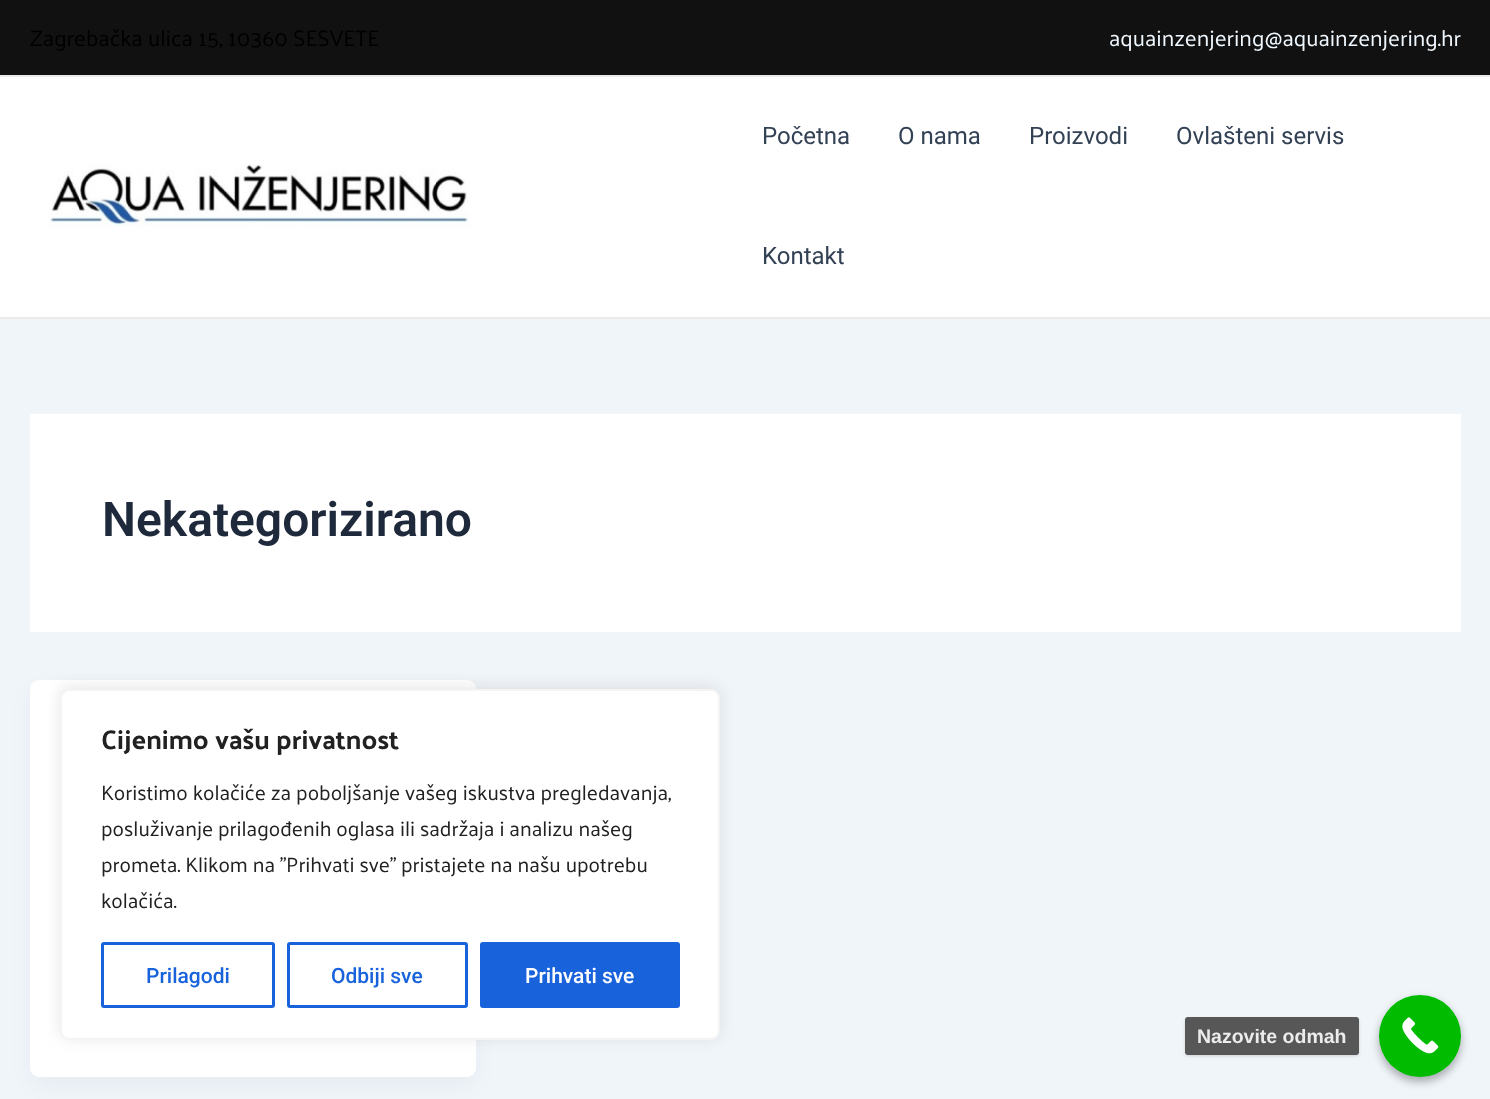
<svg xmlns="http://www.w3.org/2000/svg" xmlns:xlink="http://www.w3.org/1999/xlink" width="1490" height="1099" viewBox="0 0 1490 1099">
<style>
.cls-1{font:22.5px Palanquin;fill:#000000}
.cls-2{font:22.5px Palanquin;fill:#f0f8ff}
.cls-3{font:24px Roboto;fill:#334155}
.cls-4{font:600 48px Roboto;fill:#1e293b}
.cls-5{font:bold 27px Palanquin;fill:#212121}
.cls-6{font:21px Palanquin;fill:#212121}
.cls-7{font:500 21px Roboto;fill:#1863dc}
.cls-8{font:500 21px Roboto;fill:#ffffff}
.cls-9{font:bold 19.5px Liberation Sans;fill:#ececec}
</style>
<defs>
<clipPath id="clip1"><path d="M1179 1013H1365V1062H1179ZM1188 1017H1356C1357.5 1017 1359 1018.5 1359 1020V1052C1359 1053.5 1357.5 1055 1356 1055H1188C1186.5 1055 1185 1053.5 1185 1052V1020C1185 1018.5 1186.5 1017 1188 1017Z" clip-rule="evenodd"/></clipPath>
</defs>
<rect width="100%" height="100%" fill="#f0f5fa"/>
<rect fill="#111111" x="0" y="0" width="1490" height="75"/>
<rect fill="#eaeaea" x="0" y="75" width="1490" height="2"/>
<rect fill="#ffffff" x="0" y="77" width="1490" height="240"/>
<rect fill="#eaeaea" x="0" y="317" width="1490" height="2"/>
<image xlink:href="image0.png" x="48" y="164" width="422" height="63"/>
<rect fill="#ffffff" x="30" y="414" width="1431" height="218"/>
<rect fill="#101828" fill-opacity="0.05" filter="blur(11px)" x="33" y="692" width="440" height="391" rx="6"/>
<rect fill="#ffffff" x="30" y="680" width="446" height="397" rx="9"/>
<rect fill="#acabab" fill-opacity="0.3" filter="blur(7.5px)" x="60" y="687" width="660" height="351" rx="9"/>
<rect fill="#ffffff" stroke="#f4f4f4" stroke-width="2" x="61" y="690" width="658" height="349" rx="8"/>
<rect fill="none" stroke="#1863dc" stroke-width="3" x="102.5" y="943.5" width="171" height="63" rx="1.5"/>
<rect fill="none" stroke="#1863dc" stroke-width="3" x="288.5" y="943.5" width="178" height="63" rx="1.5"/>
<rect fill="#1863dc" stroke="#1863dc" stroke-width="3" x="481.5" y="943.5" width="197" height="63" rx="1.5"/>
<rect fill="#000000" fill-opacity="0.3" filter="blur(4.5px)" x="1379" y="999" width="82" height="83" rx="41"/>
<circle fill="#00bb00" cx="1420" cy="1036" r="41"/>
<image xlink:href="image1.png" x="1402" y="1017" width="37" height="37"/>
<g clip-path="url(#clip1)">
<rect fill="#000000" fill-opacity="0.15" filter="blur(1.5px)" x="1185" y="1019" width="174" height="37" rx="3"/>
</g>
<rect fill="#464646" fill-opacity="0.9" x="1185" y="1017" width="174" height="38" rx="3"/>
<text class="cls-1" x="30" y="46">Zagrebačka ulica 15, 10360 SESVETE</text>
<text class="cls-2" x="1109" y="46">aquainzenjering@aquainzenjering.hr</text>
<text class="cls-3" x="762" y="144">Početna</text>
<text class="cls-3" x="898" y="144">O nama</text>
<text class="cls-3" x="1029" y="144">Proizvodi</text>
<text class="cls-3" x="1176" y="144">Ovlašteni servis</text>
<text class="cls-3" x="762" y="264">Kontakt</text>
<text class="cls-4" x="102" y="536">Nekategorizirano</text>
<text class="cls-5" x="101" y="749">Cijenimo vašu privatnost</text>
<text class="cls-6"><tspan x="101" y="800">Koristimo kolačiće za poboljšanje vašeg iskustva pregledavanja,</tspan><tspan x="101" y="836">posluživanje prilagođenih oglasa ili sadržaja i analizu našeg</tspan><tspan x="101" y="872">prometa. Klikom na "Prihvati sve" pristajete na našu upotrebu</tspan><tspan x="101" y="908">kolačića.</tspan></text>
<text class="cls-7" x="146" y="983">Prilagodi</text>
<text class="cls-7" x="331" y="983">Odbiji sve</text>
<text class="cls-8" x="525" y="983">Prihvati sve</text>
<text class="cls-9" x="1197" y="1043">Nazovite odmah</text>
</svg>
